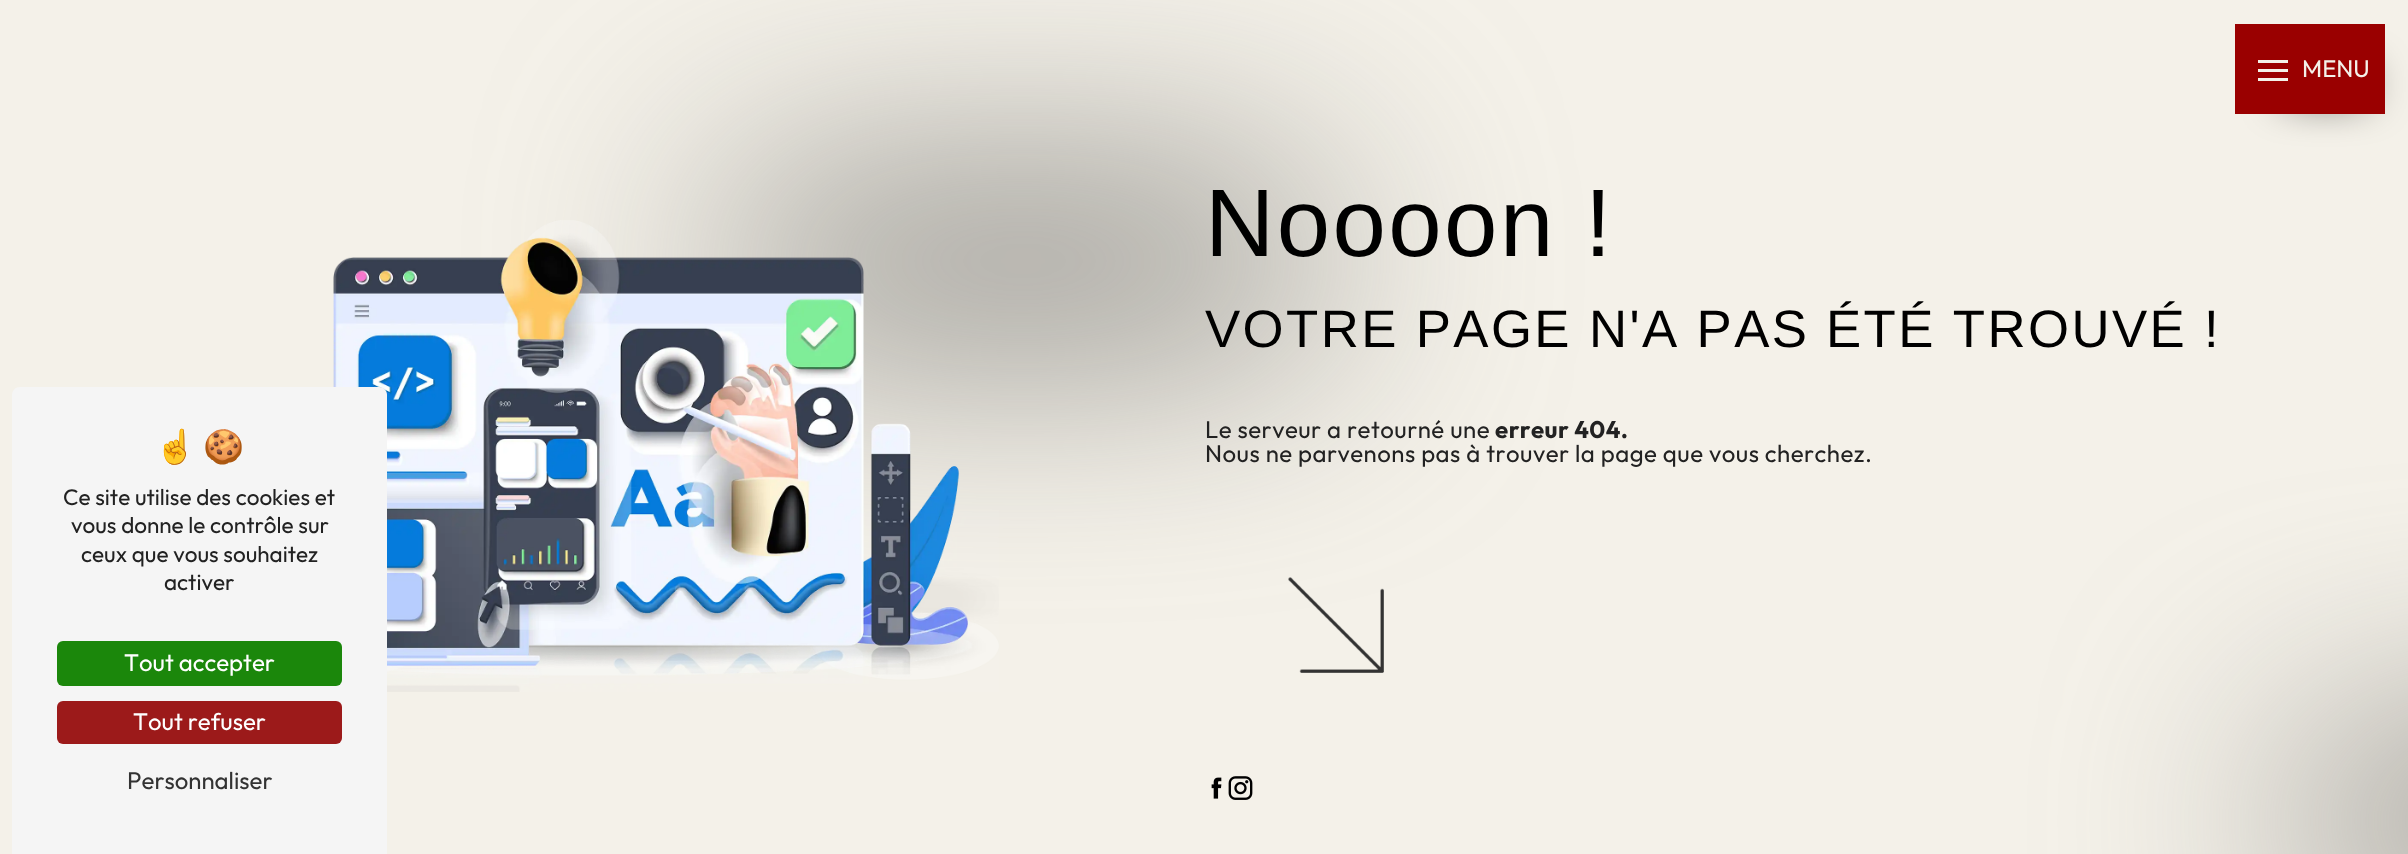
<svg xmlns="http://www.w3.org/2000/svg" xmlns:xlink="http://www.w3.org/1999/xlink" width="2408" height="854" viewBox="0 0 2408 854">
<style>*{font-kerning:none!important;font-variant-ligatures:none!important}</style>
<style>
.cls-1{font:24px Outfit;fill:#f4f1e9}
.cls-2{font:96px Liberation Sans;letter-spacing:2.4px;fill:#000000}
.cls-3{font:52.75px Liberation Sans;letter-spacing:2.4px;fill:#000000}
.cls-4{font:24px Outfit;letter-spacing:0.48px;fill:#222222}
.cls-5{font:bold 24px Outfit;letter-spacing:0.48px;fill:#222222}
.cls-6{font:33px Noto Color Emoji;fill:#222222}
.cls-7{font:22.5px Outfit;fill:#222222}
.cls-8{font:24px Outfit;fill:#ffffff}
.cls-9{font:24px Outfit;fill:#333333}
</style>
<rect width="100%" height="100%" fill="#f4f1e9"/>
<rect fill="#000000" filter="blur(22px)" x="2285" y="74" width="81" height="21"/>
<rect fill="#9a0000" x="2235" y="24" width="150" height="90"/>
<rect fill="#f4f1e9" x="2258" y="60" width="30" height="3"/>
<rect fill="#f4f1e9" x="2258" y="69" width="30" height="3"/>
<rect fill="#f4f1e9" x="2258" y="78" width="30" height="3"/>
<rect fill="#797874" filter="blur(120px)" x="723" y="186" width="600" height="150" rx="75"/>
<rect fill="#7a7874" filter="blur(120px)" x="2289" y="746" width="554" height="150" rx="75"/>
<image xlink:href="image0.png" x="333" y="220" width="666" height="472"/>
<image xlink:href="image1.png" x="1288" y="577" width="96" height="96"/>
<image xlink:href="image2.png" x="1211" y="777" width="11" height="22"/>
<image xlink:href="image3.png" x="1228" y="776" width="25" height="24"/>
<path fill="#f5f5f5" d="M20 387H379C383.5 387 387 390.5 387 395V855H12V395C12 390.5 15.5 387 20 387Z"/>
<rect fill="#1b870b" x="57" y="641" width="285" height="45" rx="6"/>
<rect fill="#9c1a1a" x="57" y="701" width="285" height="43" rx="6"/>
<text class="cls-1" x="2302" y="77">MENU</text>
<text class="cls-2" x="1205" y="256">Noooon !</text>
<text class="cls-3" x="1205" y="347">VOTRE PAGE N'A PAS</text>
<text class="cls-3" x="1826" y="347">ÉTÉ TROUVÉ !</text>
<text class="cls-4" x="1205" y="438">Le serveur a retourné une</text>
<text class="cls-5" x="1495" y="438">erreur 404.</text>
<text class="cls-4" x="1205" y="462">Nous ne parvenons pas à trouver la page que vous cherchez.</text>
<text class="cls-6" x="155" y="458">☝</text>
<text class="cls-6" x="203" y="458">🍪</text>
<text class="cls-7" x="63" y="505">Ce site utilise des cookies et</text>
<text class="cls-7" x="71" y="533">vous donne le contrôle sur</text>
<text class="cls-7" x="81" y="562">ceux que vous souhaitez</text>
<text class="cls-7" x="164" y="590">activer</text>
<text class="cls-8" x="124" y="671">Tout accepter</text>
<text class="cls-8" x="133" y="730">Tout refuser</text>
<text class="cls-9" x="127" y="789">Personnaliser</text>
</svg>
